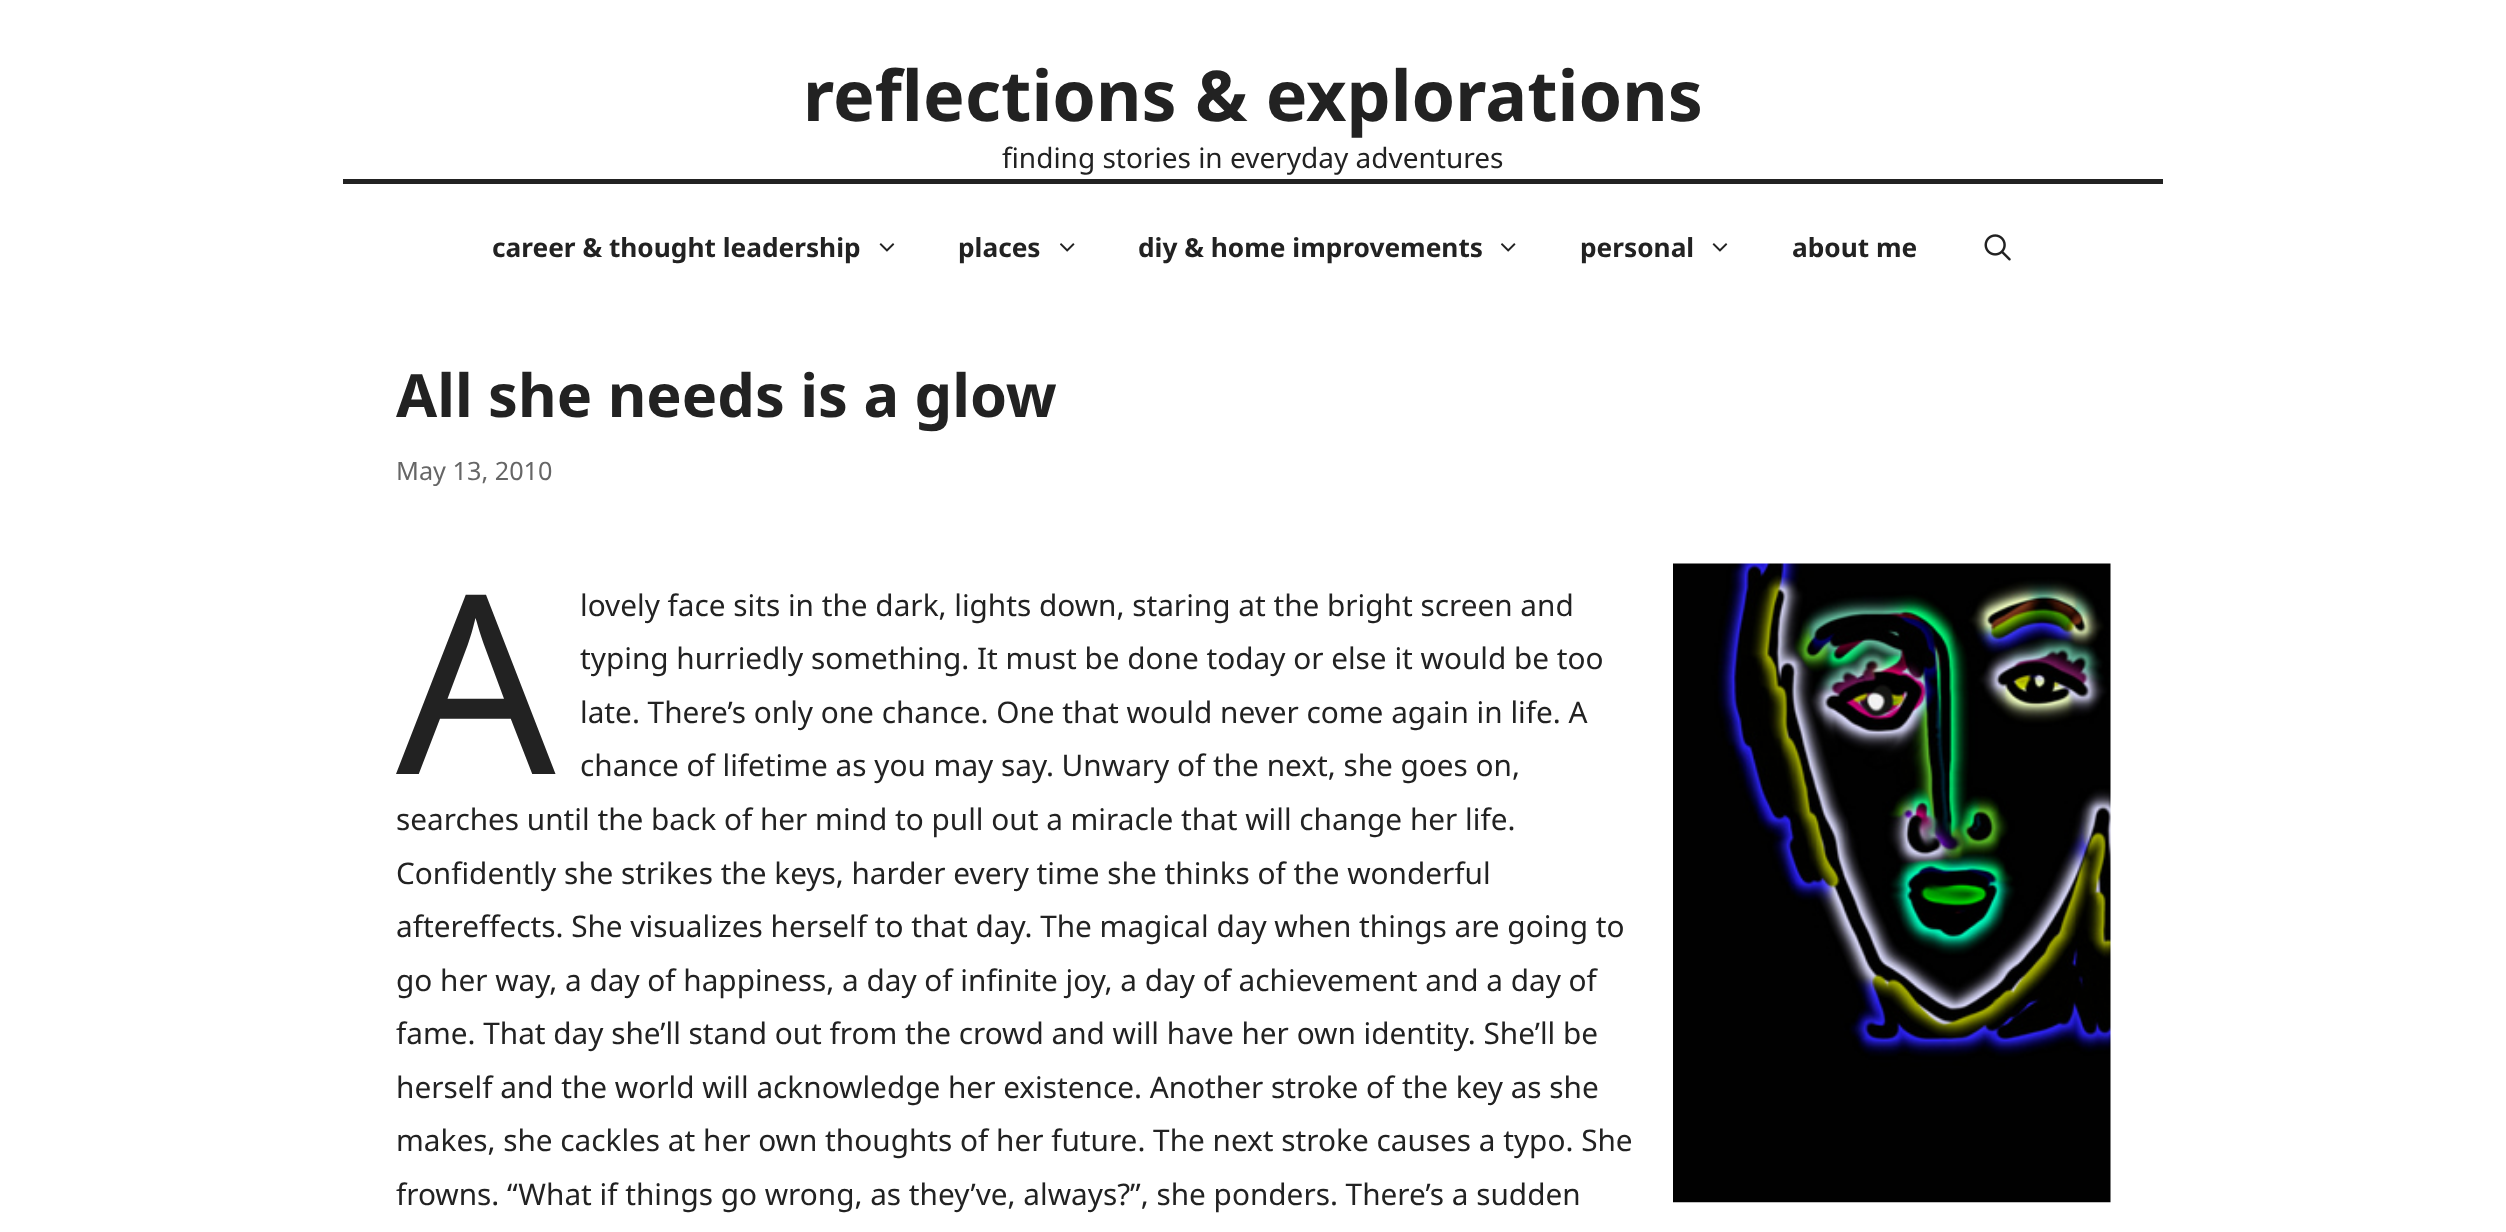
<svg xmlns="http://www.w3.org/2000/svg" xmlns:xlink="http://www.w3.org/1999/xlink" width="2506" height="1232" viewBox="0 0 2506 1232">
<style>
.cls-1{font:bold 70px Noto Sans;fill:#222222}
.cls-2{font:28px 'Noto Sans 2';fill:#222222}
.cls-3{font:bold 26.25px Noto Sans;fill:#222222}
.cls-4{font:bold 59.5px Noto Sans;fill:#222222}
.cls-5{font:25.25px 'Noto Sans 2';fill:#666666}
.cls-6{font:250px Noto Sans;fill:#222222}
.cls-7{font:29.75px 'Noto Sans 2';fill:#222222}
</style>
<rect width="100%" height="100%" fill="#ffffff"/>
<rect fill="#222222" x="343" y="179" width="1820" height="5"/>
<image xlink:href="image0.png" x="879" y="243" width="16" height="9"/>
<image xlink:href="image1.png" x="1060" y="243" width="15" height="9"/>
<image xlink:href="image1.png" x="1501" y="243" width="15" height="9"/>
<image xlink:href="image0.png" x="1712" y="243" width="16" height="9"/>
<image xlink:href="image2.png" x="1984" y="234" width="27" height="27"/>
<image xlink:href="image3.png" x="1673" y="563" width="438" height="640"/>
<text class="cls-1" x="803" y="121">reflections &amp; explorations</text>
<text class="cls-2" x="1002" y="168">finding stories in everyday adventures</text>
<text class="cls-3" x="492" y="257">career &amp; thought leadership</text>
<text class="cls-3" x="958" y="257">places</text>
<text class="cls-3" x="1138" y="257">diy &amp; home improvements</text>
<text class="cls-3" x="1580" y="257">personal</text>
<text class="cls-3" x="1792" y="257">about me</text>
<text class="cls-4" x="396" y="417">All she needs is a glow</text>
<text class="cls-5" x="396" y="480">May 13, 2010</text>
<text class="cls-6" x="396" y="774">A</text>
<text class="cls-7"><tspan x="580" y="616">lovely face sits in the dark, lights down, staring at the bright screen and</tspan><tspan x="580" y="669">typing hurriedly something. It must be done today or else it would be too</tspan><tspan x="580" y="723">late. There’s only one chance. One that would never come again in life. A</tspan><tspan x="580" y="776">chance of lifetime as you may say. Unwary of the next, she goes on,</tspan></text>
<text class="cls-7"><tspan x="396" y="830">searches until the back of her mind to pull out a miracle that will change her life.</tspan><tspan x="396" y="884">Confidently she strikes the keys, harder every time she thinks of the wonderful</tspan><tspan x="396" y="937">aftereffects. She visualizes herself to that day. The magical day when things are going to</tspan><tspan x="396" y="991">go her way, a day of happiness, a day of infinite joy, a day of achievement and a day of</tspan><tspan x="396" y="1044">fame. That day she’ll stand out from the crowd and will have her own identity. She’ll be</tspan><tspan x="396" y="1098">herself and the world will acknowledge her existence. Another stroke of the key as she</tspan><tspan x="396" y="1151">makes, she cackles at her own thoughts of her future. The next stroke causes a typo. She</tspan><tspan x="396" y="1205">frowns. “What if things go wrong, as they’ve, always?”, she ponders. There’s a sudden</tspan></text>
</svg>
